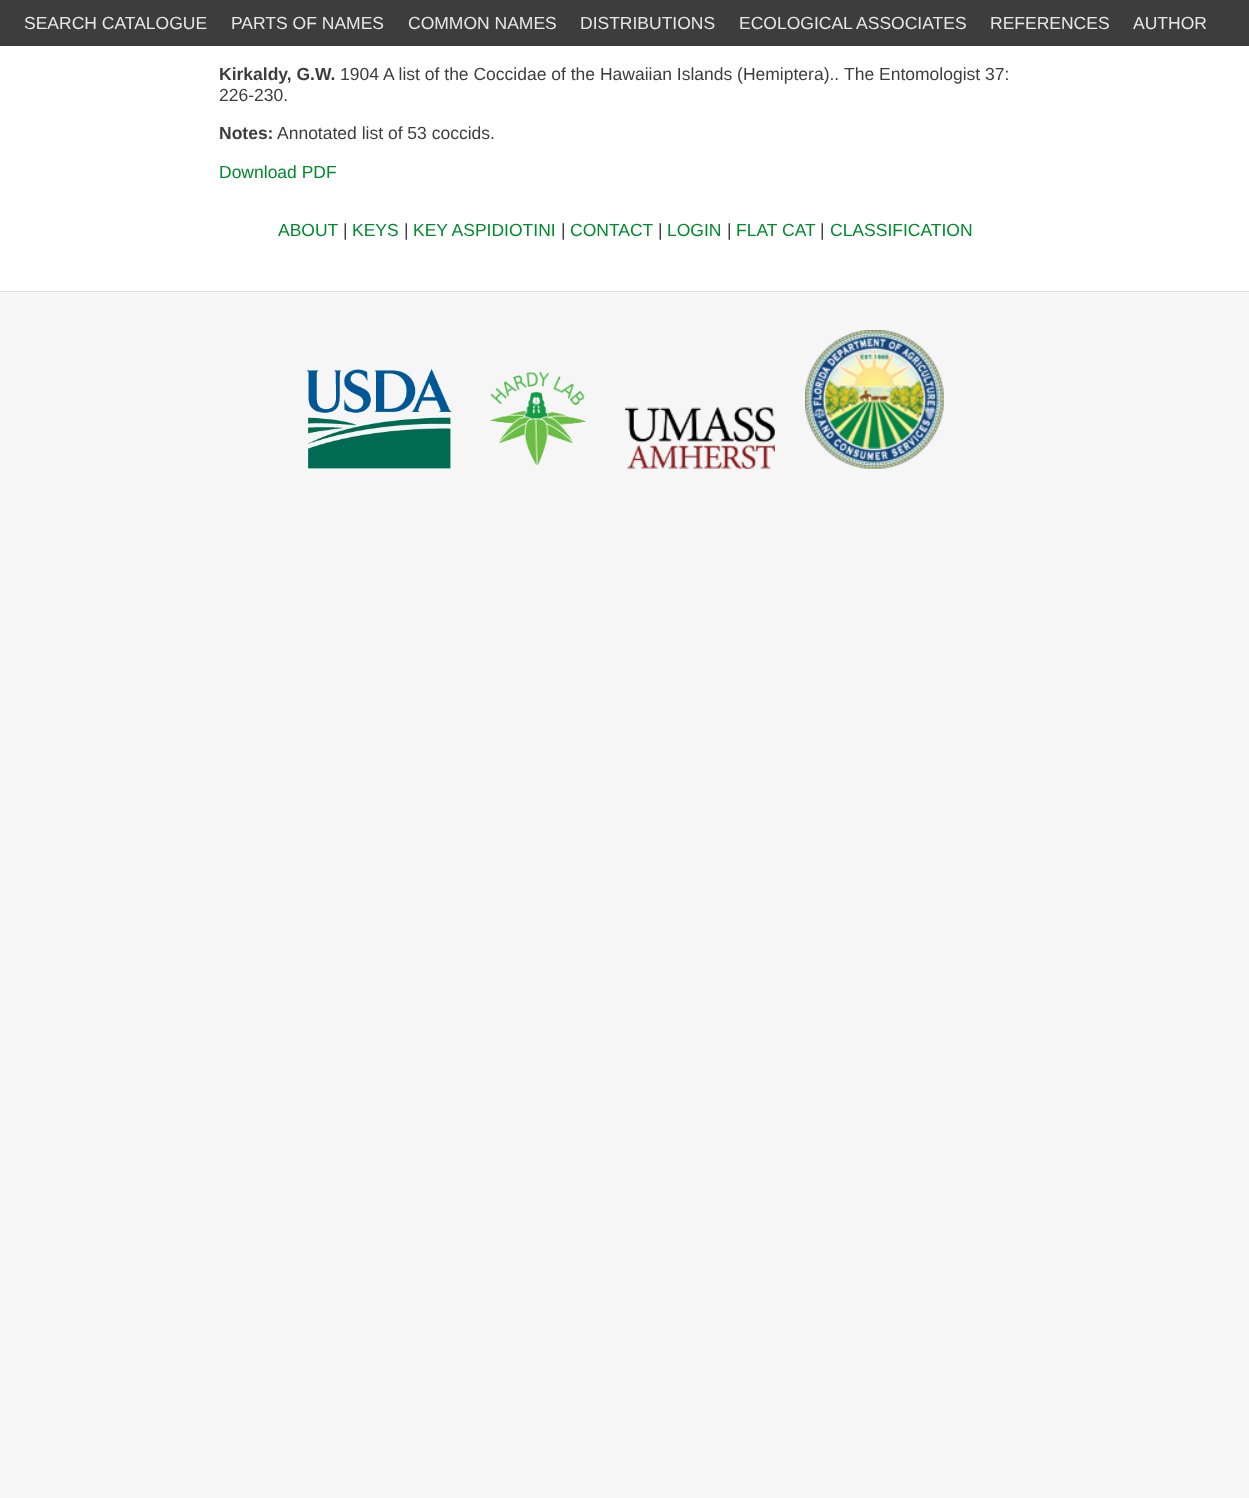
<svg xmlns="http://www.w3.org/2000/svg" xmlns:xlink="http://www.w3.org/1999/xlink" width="1249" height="1498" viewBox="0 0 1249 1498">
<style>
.cls-1{font:17.5px Liberation Sans;fill:#e6e8e6}
.cls-2{font:bold 17.5px Liberation Sans;fill:#3d3d3d}
.cls-3{font:17.5px Liberation Sans;fill:#3d3d3d}
.cls-4{font:17.5px Liberation Sans;fill:#008a2e}
</style>
<rect width="100%" height="100%" fill="#f6f6f6"/>
<rect fill="#ffffff" x="0" y="46" width="1249" height="245"/>
<rect fill="#3d3d3d" x="0" y="0" width="1249" height="46"/>
<rect fill="#dfdfdf" x="0" y="291" width="1249" height="1"/>
<image xlink:href="image0.png" x="306" y="368" width="147" height="101"/>
<image xlink:href="image1.png" x="488" y="371" width="100" height="97"/>
<image xlink:href="image2.png" x="625" y="407" width="150" height="62"/>
<image xlink:href="image3.png" x="805" y="330" width="139" height="139"/>
<text class="cls-1" x="24" y="29">SEARCH CATALOGUE</text>
<text class="cls-1" x="231" y="29">PARTS OF NAMES</text>
<text class="cls-1" x="408" y="29">COMMON NAMES</text>
<text class="cls-1" x="580" y="29">DISTRIBUTIONS</text>
<text class="cls-1" x="739" y="29">ECOLOGICAL ASSOCIATES</text>
<text class="cls-1" x="990" y="29">REFERENCES</text>
<text class="cls-1" x="1133" y="29">AUTHOR</text>
<text class="cls-2" x="219" y="80">Kirkaldy, G.W.</text>
<text class="cls-3" x="340" y="80">1904</text>
<text class="cls-3" x="383" y="80">A list of the Coccidae of the Hawaiian Islands (Hemiptera)..</text>
<text class="cls-3" x="844" y="80">The Entomologist 37:</text>
<text class="cls-3" x="219" y="101">226-230.</text>
<text class="cls-2" x="219" y="139">Notes:</text>
<text class="cls-3" x="277" y="139">Annotated list of 53 coccids.</text>
<text class="cls-4" x="219" y="178">Download PDF</text>
<text class="cls-4" x="278" y="236">ABOUT</text>
<text class="cls-3" x="343" y="236">|</text>
<text class="cls-4" x="352" y="236">KEYS</text>
<text class="cls-3" x="404" y="236">|</text>
<text class="cls-4" x="413" y="236">KEY ASPIDIOTINI</text>
<text class="cls-3" x="561" y="236">|</text>
<text class="cls-4" x="570" y="236">CONTACT</text>
<text class="cls-3" x="658" y="236">|</text>
<text class="cls-4" x="667" y="236">LOGIN</text>
<text class="cls-3" x="727" y="236">|</text>
<text class="cls-4" x="736" y="236">FLAT CAT</text>
<text class="cls-3" x="820" y="236">|</text>
<text class="cls-4" x="830" y="236">CLASSIFICATION</text>
</svg>
